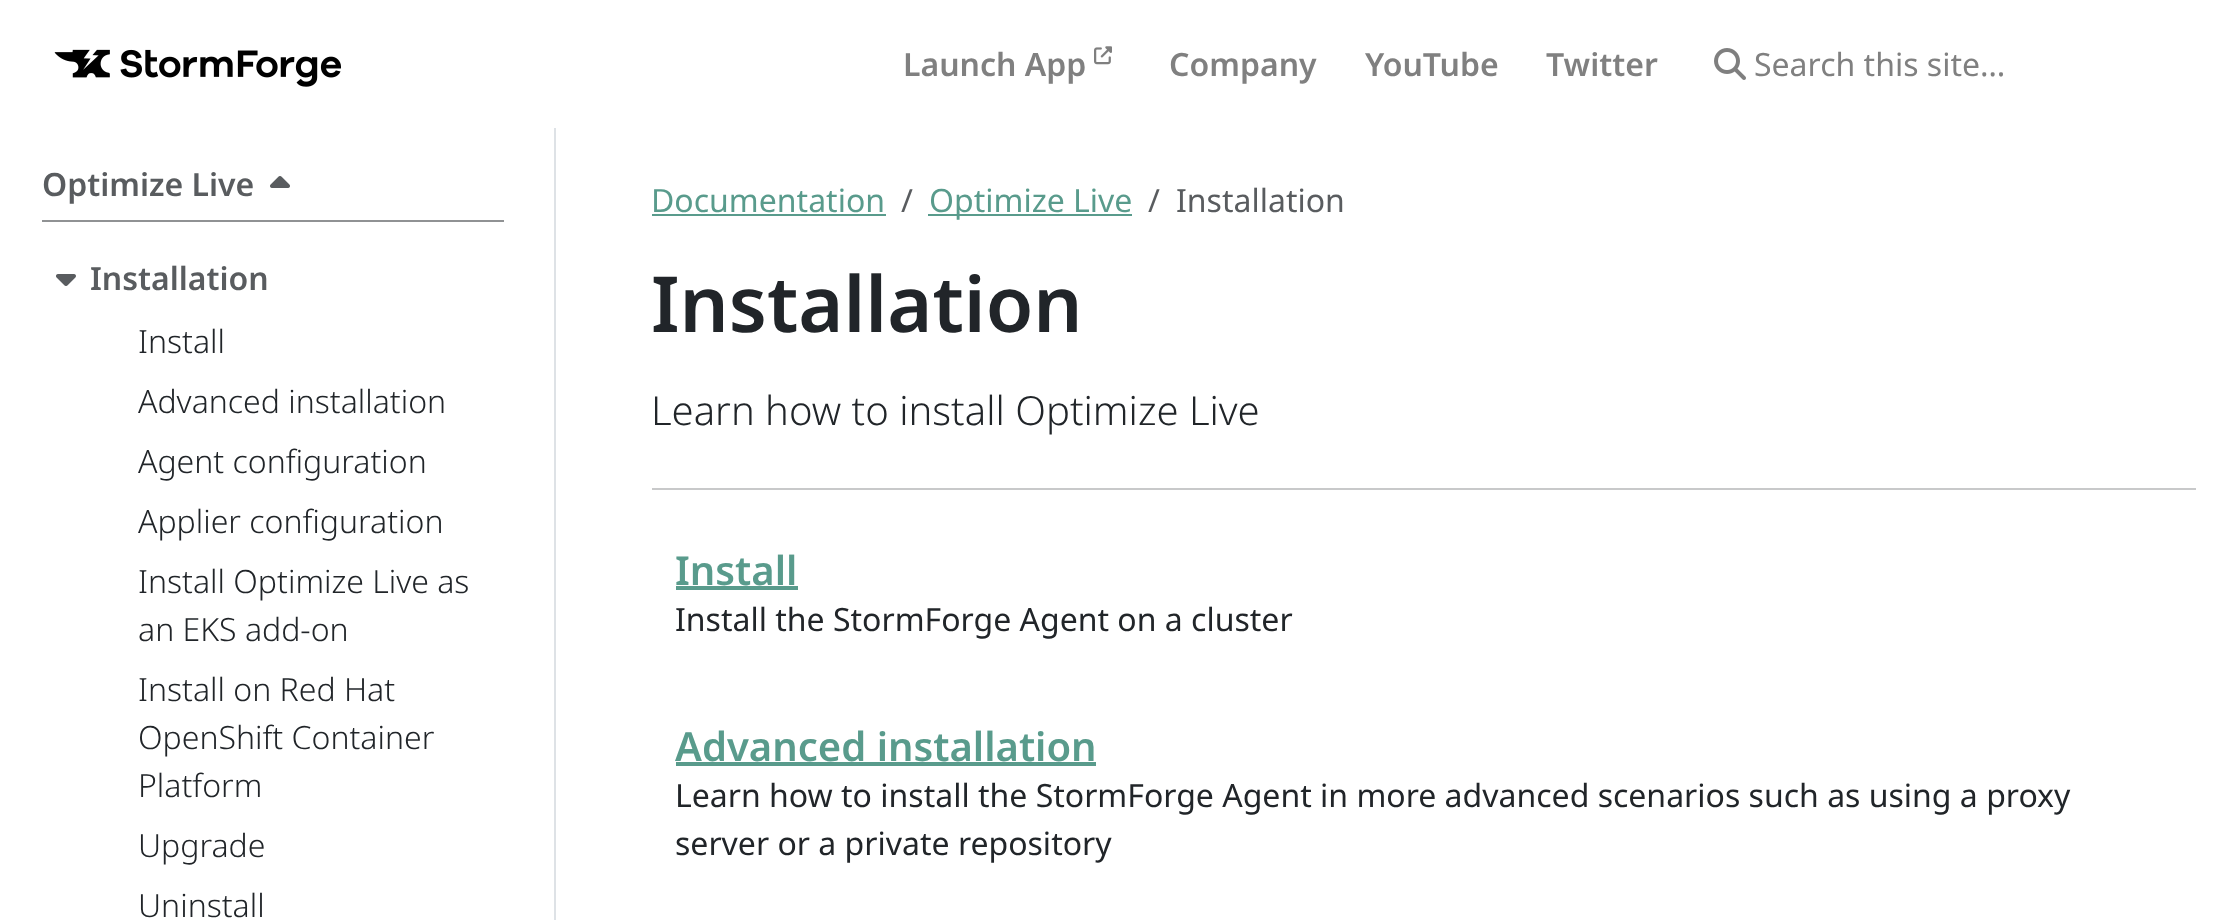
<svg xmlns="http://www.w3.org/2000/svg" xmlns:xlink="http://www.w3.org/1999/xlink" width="2219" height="920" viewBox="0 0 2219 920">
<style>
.cls-1{font:600 32px Noto Sans;fill:#808080}
.cls-2{font:32px Noto Sans;fill:#808080}
.cls-3{font:600 32px Noto Sans;fill:#595c5f}
.cls-4{font:300 32px Noto Sans;fill:#212529}
.cls-5{font:32px Noto Sans;fill:#599b8c}
.cls-6{font:32px Noto Sans;fill:#595c5f}
.cls-7{font:600 77.25px Noto Sans;fill:#212529}
.cls-8{font:300 40px Noto Sans;fill:#212529}
.cls-9{font:600 40px Noto Sans;fill:#599b8c}
.cls-10{font:32px Noto Sans;fill:#212529}
</style>
<rect width="100%" height="100%" fill="#ffffff"/>
<image xlink:href="image0.png" x="54" y="49" width="287" height="38"/>
<image xlink:href="image1.png" x="1094" y="46" width="18" height="19"/>
<image xlink:href="image2.png" x="1714" y="48" width="32" height="32"/>
<rect fill="#dee2e6" x="554" y="128" width="2" height="792"/>
<rect fill="#909294" x="42" y="220" width="462" height="2"/>
<image xlink:href="image3.png" x="270" y="176" width="20" height="12"/>
<image xlink:href="image4.png" x="56" y="274" width="20" height="12"/>
<rect fill="#599b8c" x="652" y="214" width="234" height="2"/>
<rect fill="#599b8c" x="928" y="214" width="204" height="2"/>
<rect fill="#c8c9ca" x="652" y="488" width="1544" height="2"/>
<rect fill="#599b8c" x="676" y="586" width="122" height="4"/>
<rect fill="#599b8c" x="676" y="762" width="420" height="4"/>
<text class="cls-1" x="903" y="76">Launch App</text>
<text class="cls-1" x="1169" y="76">Company</text>
<text class="cls-1" x="1365" y="76">YouTube</text>
<text class="cls-1" x="1546" y="76">Twitter</text>
<text class="cls-2" x="1754" y="76">Search this site…</text>
<text class="cls-3" x="42" y="196">Optimize Live</text>
<text class="cls-3" x="90" y="290">Installation</text>
<text class="cls-4"><tspan x="138" y="353">Install</tspan><tspan x="138" y="413">Advanced installation</tspan><tspan x="138" y="473">Agent configuration</tspan><tspan x="138" y="533">Applier configuration</tspan><tspan x="138" y="593">Install Optimize Live as</tspan><tspan x="138" y="641">an EKS add-on</tspan><tspan x="138" y="701">Install on Red Hat</tspan><tspan x="138" y="749">OpenShift Container</tspan><tspan x="138" y="797">Platform</tspan><tspan x="138" y="857">Upgrade</tspan><tspan x="138" y="917">Uninstall</tspan></text>
<text class="cls-5" x="651" y="212">Documentation</text>
<text class="cls-6" x="901" y="212">/</text>
<text class="cls-5" x="929" y="212">Optimize Live</text>
<text class="cls-6" x="1148" y="212">/</text>
<text class="cls-6" x="1176" y="212">Installation</text>
<text class="cls-7" x="651" y="332">Installation</text>
<text class="cls-8" x="651" y="425">Learn how to install Optimize Live</text>
<text class="cls-9" x="675" y="585">Install</text>
<text class="cls-10" x="675" y="631">Install the StormForge Agent on a cluster</text>
<text class="cls-9" x="675" y="761">Advanced installation</text>
<text class="cls-10"><tspan x="675" y="807">Learn how to install the StormForge Agent in more advanced scenarios such as using a proxy</tspan><tspan x="675" y="855">server or a private repository</tspan></text>
</svg>
